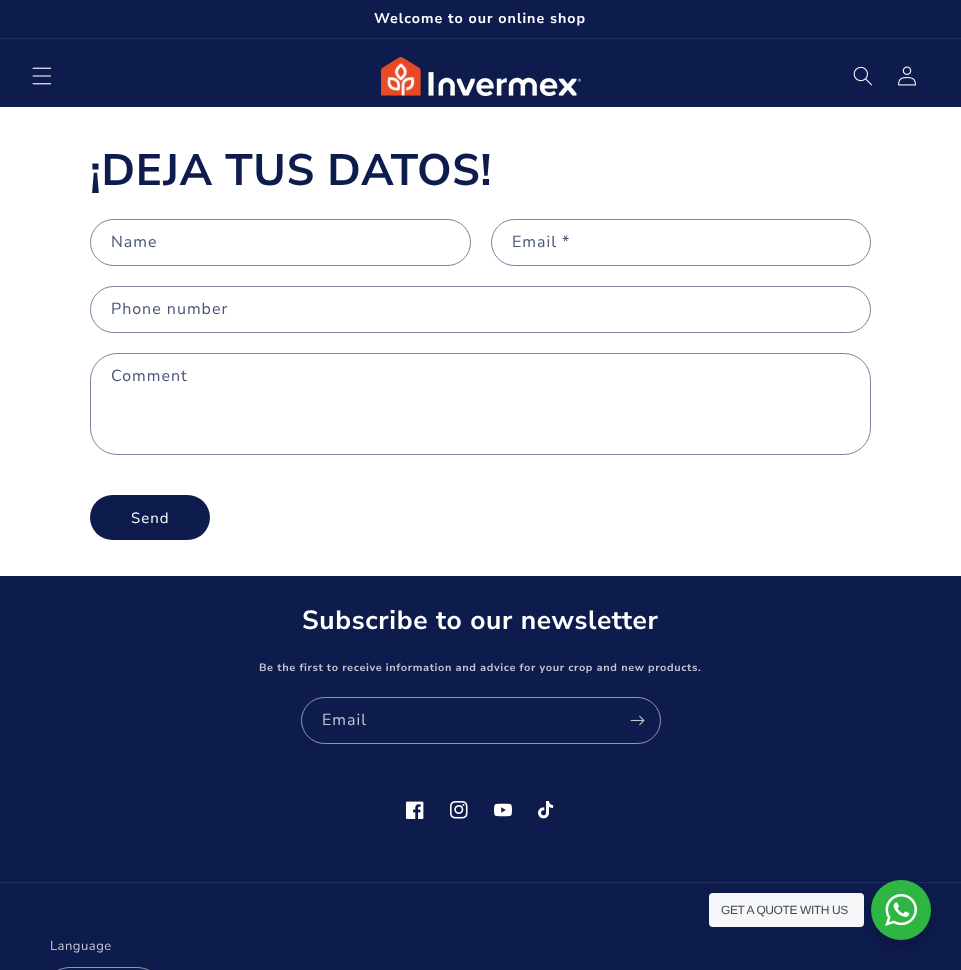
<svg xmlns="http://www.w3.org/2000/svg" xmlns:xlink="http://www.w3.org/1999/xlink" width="961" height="970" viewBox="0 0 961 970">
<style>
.cls-1{font:bold 14.25px Nunito Sans;letter-spacing:1px;fill:#ffffff}
.cls-2{font:bold 44px Nunito Sans;letter-spacing:0.65px;fill:#0e1b4d}
.cls-3{font:16px Nunito Sans;letter-spacing:1px;fill:#4a547a}
.cls-4{font:15px Nunito Sans;letter-spacing:1px;fill:#ffffff}
.cls-5{font:bold 26.4px Nunito Sans;letter-spacing:0.65px;fill:#ffffff}
.cls-6{font:bold 10.7px 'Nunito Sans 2';letter-spacing:0.6px;fill:#c3c6d3}
.cls-7{font:16px Nunito Sans;letter-spacing:1px;fill:#c3c6d3}
.cls-8{font:12px Liberation Sans;letter-spacing:-0.4px;fill:#43474e}
.cls-9{font:13px Nunito Sans;letter-spacing:0.5px;fill:#c3c6d3}
</style>
<rect width="100%" height="100%" fill="#ffffff"/>
<rect fill="#0e1b4d" x="0" y="0" width="961" height="38"/>
<rect fill="#212d5b" x="0" y="38" width="961" height="1"/>
<rect fill="#0e1b4d" x="0" y="39" width="961" height="68"/>
<image xlink:href="image0.png" x="32" y="67" width="20" height="18"/>
<image xlink:href="image1.png" x="381" y="57" width="200" height="39"/>
<image xlink:href="image2.png" x="853" y="66" width="19" height="20"/>
<image xlink:href="image3.png" x="898" y="66" width="18" height="20"/>
<rect fill="none" stroke="#7a829d" x="90.5" y="219.5" width="380" height="46" rx="23"/>
<rect fill="none" stroke="#7a829d" x="491.5" y="219.5" width="379" height="46" rx="23"/>
<rect fill="none" stroke="#7a829d" x="90.5" y="286.5" width="780" height="46" rx="23"/>
<rect fill="none" stroke="#7a829d" x="90.5" y="353.5" width="780" height="101" rx="26.5"/>
<rect fill="#0e1b4d" x="90" y="495" width="120" height="45" rx="22.5"/>
<rect fill="#0e1b4d" x="0" y="576" width="961" height="394"/>
<rect fill="none" stroke="#9398af" x="301.5" y="697.5" width="359" height="46" rx="23"/>
<image xlink:href="image4.png" x="630" y="715" width="15" height="11"/>
<rect fill="#212d5b" x="0" y="882" width="961" height="1"/>
<rect fill="#000000" fill-opacity="0.14" filter="blur(4px)" x="869" y="884" width="64" height="64" rx="32"/>
<rect fill="#f5f7f9" x="709" y="893" width="155" height="34" rx="4"/>
<circle fill="#2db742" cx="901" cy="910" r="30"/>
<image xlink:href="image5.png" x="885" y="894" width="32" height="32"/>
<image xlink:href="image6.png" x="406" y="801" width="18" height="18"/>
<image xlink:href="image7.png" x="450" y="801" width="18" height="18"/>
<image xlink:href="image8.png" x="494" y="803" width="18" height="14"/>
<image xlink:href="image9.png" x="538" y="801" width="16" height="18"/>
<rect fill="none" stroke="#9398af" x="50.5" y="967.5" width="106" height="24" rx="20.5"/>
<text class="cls-1" x="374" y="23">Welcome to our online shop</text>
<text class="cls-2" x="90" y="185">¡DEJA TUS DATOS!</text>
<text class="cls-3" x="111" y="247">Name</text>
<text class="cls-3" x="512" y="247">Email *</text>
<text class="cls-3" x="111" y="314">Phone number</text>
<text class="cls-3" x="111" y="381">Comment</text>
<text class="cls-4" x="131" y="523">Send</text>
<text class="cls-5" x="302" y="629">Subscribe to our newsletter</text>
<text class="cls-6" x="259" y="671">Be the first to receive information and advice for your crop and new products.</text>
<text class="cls-7" x="322" y="725">Email</text>
<text class="cls-8" x="721" y="914">GET A QUOTE WITH US</text>
<text class="cls-9" x="50" y="950">Language</text>
</svg>
